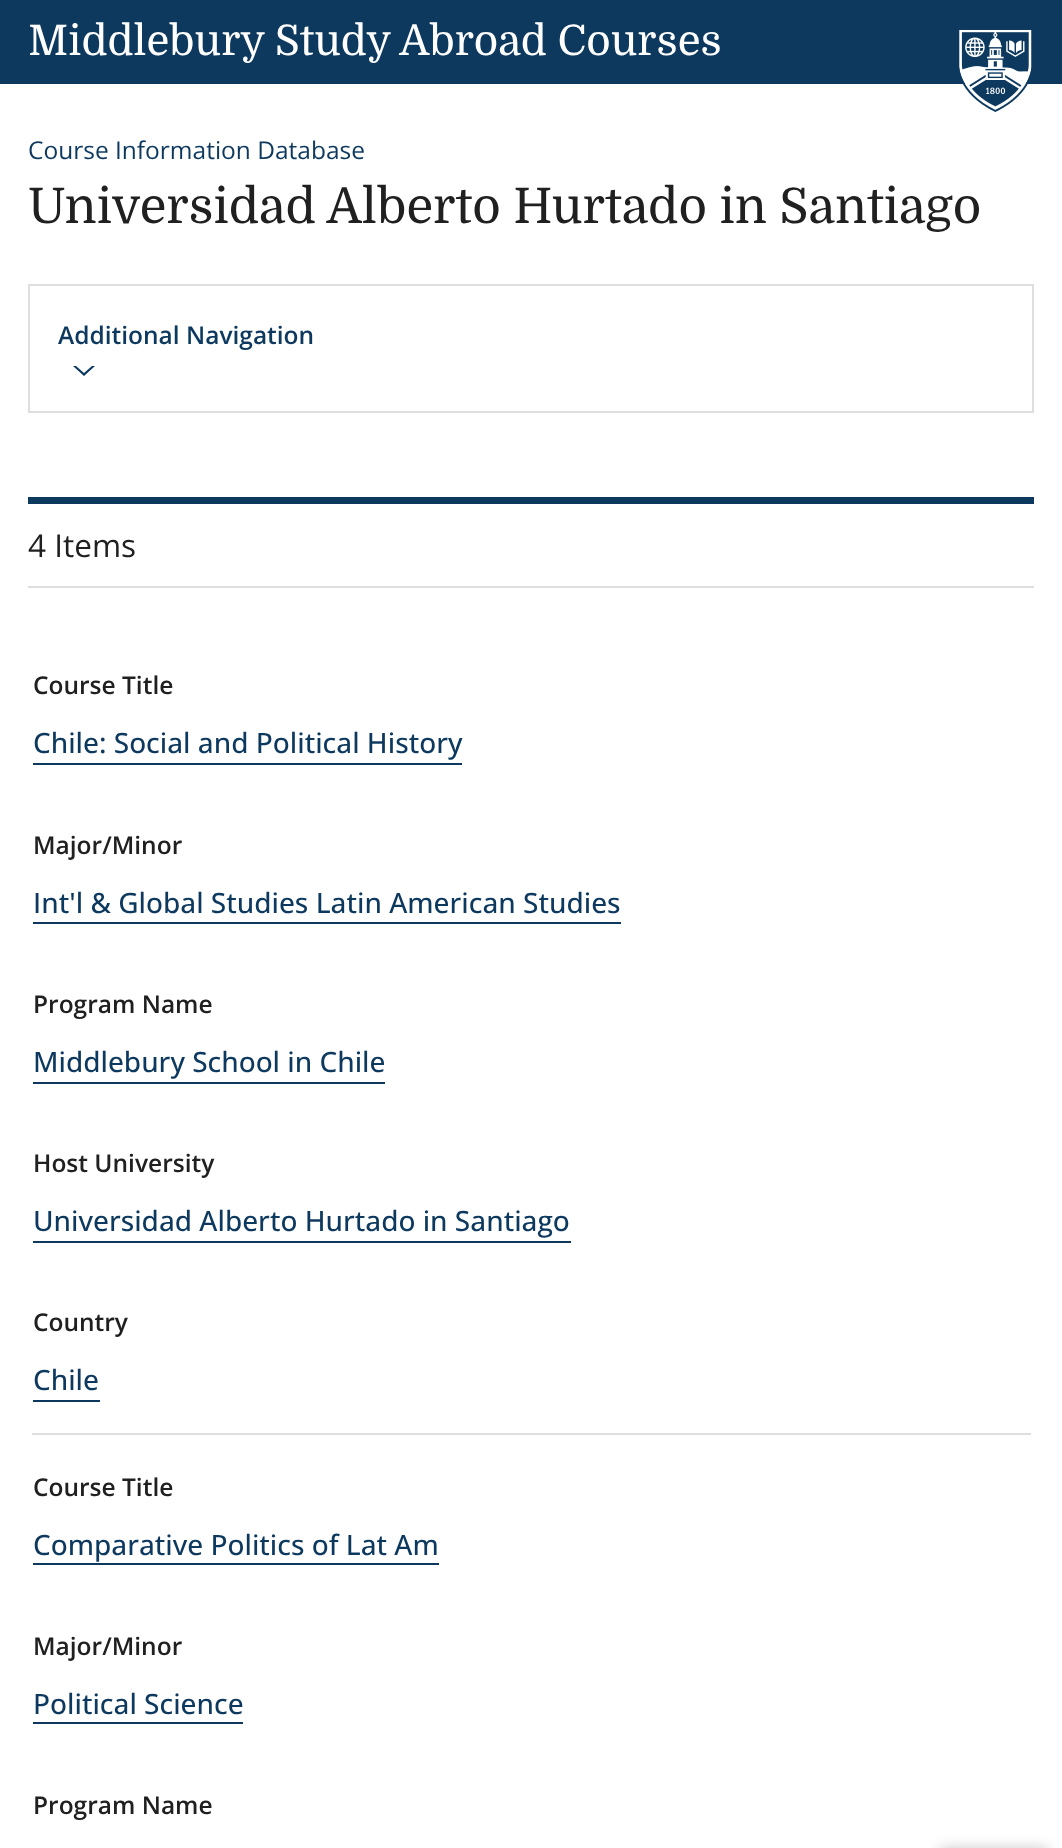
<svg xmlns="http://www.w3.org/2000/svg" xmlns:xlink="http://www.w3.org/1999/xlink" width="1062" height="1848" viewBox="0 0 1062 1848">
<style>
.cls-1{font:42px Domine;fill:#ffffff}
.cls-2{font:24.5px Open Sans;fill:#0d395f}
.cls-3{font:49px Domine;fill:#202020}
.cls-4{font:600 24.5px Open Sans;fill:#0d395f}
.cls-5{font:31.5px Open Sans;fill:#202020}
.cls-6{font:600 24.5px Open Sans;fill:#202020}
.cls-7{font:500 28px Open Sans;fill:#0d395f}
</style>
<rect width="100%" height="100%" fill="#ffffff"/>
<rect fill="#0d395f" x="0" y="0" width="1062" height="84"/>
<image xlink:href="image0.png" x="959" y="29" width="73" height="83"/>
<rect fill="none" stroke="#dedede" stroke-width="2" x="29" y="285" width="1004" height="127"/>
<path fill="#0d395f" d="M76 366H73L84 376L95 366H92L84 373Z"/>
<rect fill="#0d395f" x="28" y="497" width="1006" height="7"/>
<rect fill="#dedede" x="28" y="586" width="1006" height="2"/>
<rect fill="#0d395f" x="33" y="763" width="429" height="2"/>
<rect fill="#0d395f" x="33" y="922" width="588" height="2"/>
<rect fill="#0d395f" x="33" y="1082" width="352" height="2"/>
<rect fill="#0d395f" x="33" y="1241" width="538" height="2"/>
<rect fill="#dedede" x="32" y="1433" width="999" height="2"/>
<rect fill="#0d395f" x="33" y="1400" width="67" height="2"/>
<rect fill="#0d395f" x="33" y="1563" width="406" height="2"/>
<rect fill="#0d395f" x="33" y="1722" width="210" height="2"/>
<rect fill="#000000" fill-opacity="0.2" filter="blur(7px)" x="940" y="1848" width="108" height="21"/>
<text class="cls-1" x="28" y="55">Middlebury Study Abroad Courses</text>
<text class="cls-2" x="28" y="159">Course Information Database</text>
<text class="cls-3" x="28" y="223">Universidad Alberto Hurtado in Santiago</text>
<text class="cls-4" x="58" y="344">Additional Navigation</text>
<text class="cls-5" x="28" y="557">4 Items</text>
<text class="cls-6" x="33" y="694">Course Title</text>
<text class="cls-7" x="33" y="753">Chile: Social and Political History</text>
<text class="cls-6" x="33" y="854">Major/Minor</text>
<text class="cls-7" x="33" y="913">Int'l &amp; Global Studies Latin American Studies</text>
<text class="cls-6" x="33" y="1013">Program Name</text>
<text class="cls-7" x="33" y="1072">Middlebury School in Chile</text>
<text class="cls-6" x="33" y="1172">Host University</text>
<text class="cls-7" x="33" y="1231">Universidad Alberto Hurtado in Santiago</text>
<text class="cls-6" x="33" y="1331">Country</text>
<text class="cls-7" x="33" y="1390">Chile</text>
<text class="cls-6" x="33" y="1496">Course Title</text>
<text class="cls-7" x="33" y="1555">Comparative Politics of Lat Am</text>
<text class="cls-6" x="33" y="1655">Major/Minor</text>
<text class="cls-7" x="33" y="1714">Political Science</text>
<text class="cls-6" x="33" y="1814">Program Name</text>
</svg>
